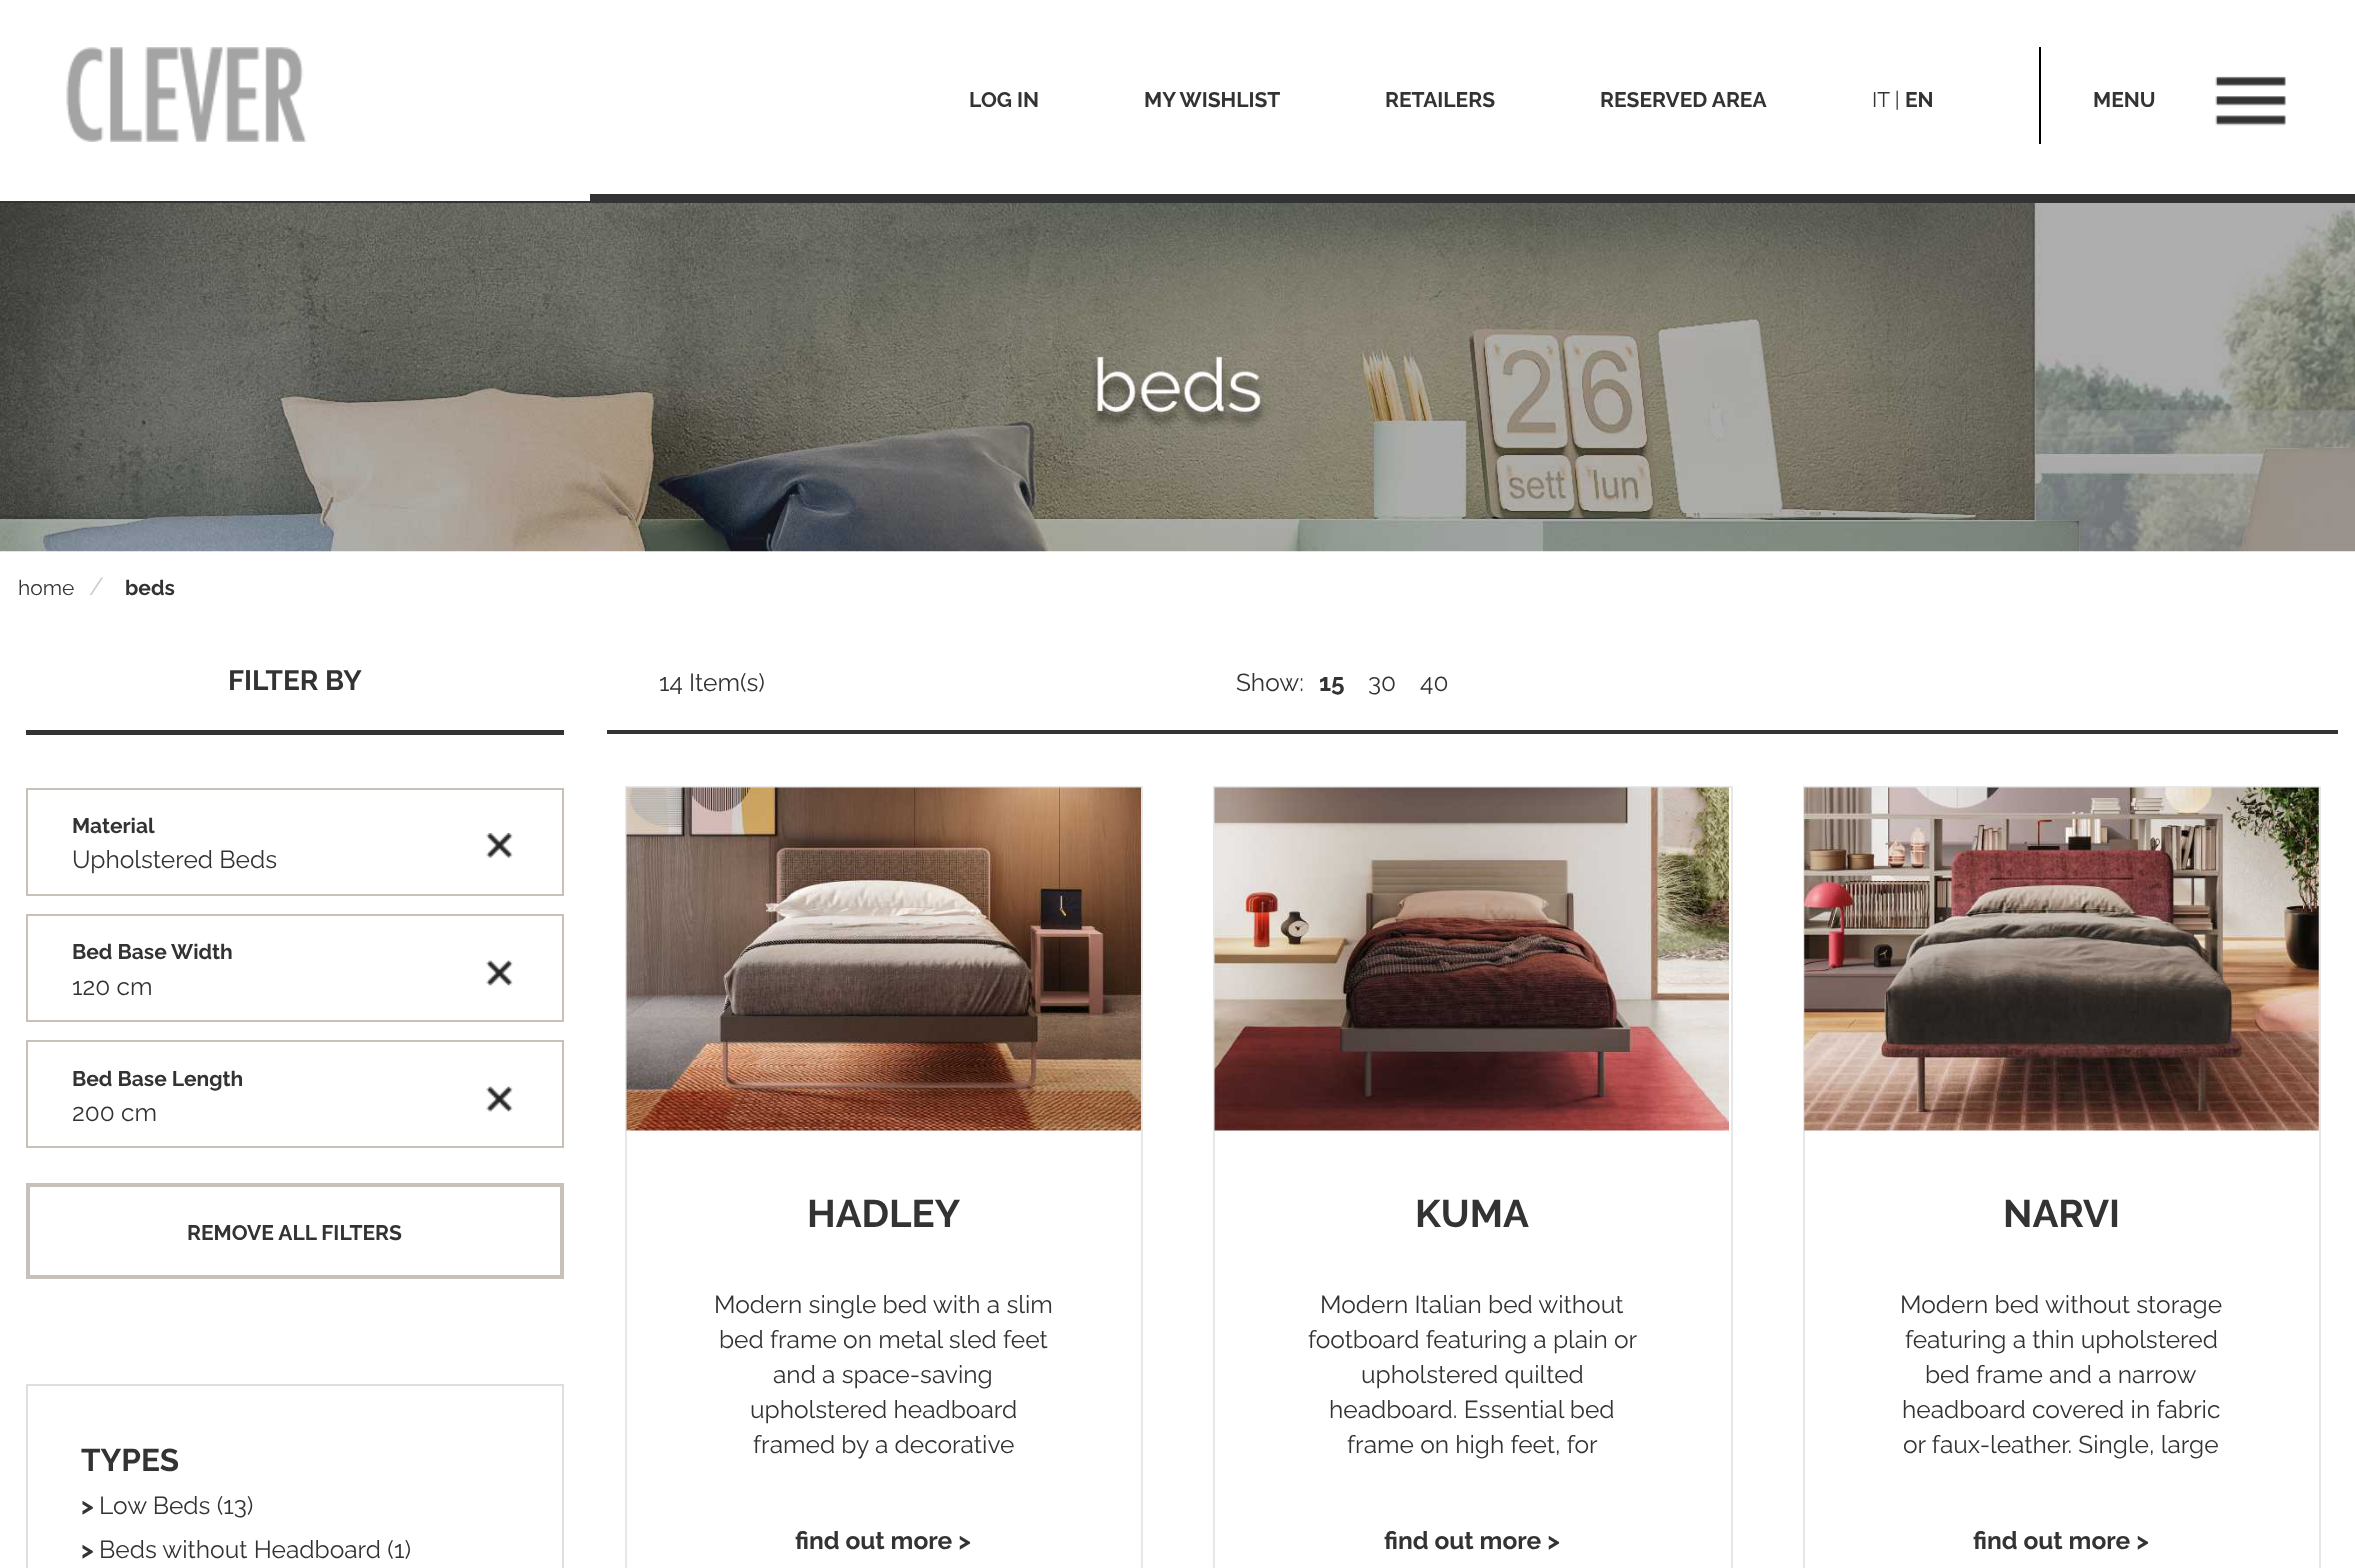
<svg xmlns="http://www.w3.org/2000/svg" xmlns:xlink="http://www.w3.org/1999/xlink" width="2355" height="1568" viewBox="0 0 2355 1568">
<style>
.cls-1{font:bold 21px Raleway;fill:#333333}
.cls-2{font:21px Raleway;fill:#333333}
.cls-3{font:24.5px Raleway;fill:#cccccc}
.cls-4{font:bold 28px Raleway;fill:#333333}
.cls-5{font:24.5px Raleway;fill:#333333}
.cls-6{font:bold 31.5px Raleway;fill:#333333}
.cls-7{font:bold 24.5px Raleway;fill:#333333}
.cls-8{font:bold 38.5px Raleway;fill:#333333}
</style>
<rect width="100%" height="100%" fill="#ffffff"/>
<image xlink:href="image0.png" x="66" y="47" width="241" height="95"/>
<rect fill="#000000" x="2039" y="47" width="2" height="97"/>
<image xlink:href="image1.png" x="2215" y="76" width="71" height="50"/>
<rect fill="#333333" x="0" y="201" width="590" height="2"/>
<rect fill="#333333" x="590" y="194" width="1765" height="9"/>
<image xlink:href="image2.png" x="0" y="203" width="2355" height="349"/>
<rect fill="#333333" x="26" y="730" width="538" height="5"/>
<rect fill="none" stroke="#c7c1b9" stroke-width="2" x="27" y="789" width="536" height="106"/>
<image xlink:href="image3.png" x="486" y="833" width="27" height="25"/>
<rect fill="none" stroke="#c7c1b9" stroke-width="2" x="27" y="915" width="536" height="106"/>
<image xlink:href="image4.png" x="486" y="960" width="27" height="26"/>
<rect fill="none" stroke="#c7c1b9" stroke-width="2" x="27" y="1041" width="536" height="106"/>
<image xlink:href="image4.png" x="486" y="1086" width="27" height="26"/>
<rect fill="none" stroke="#c7c1b9" stroke-width="4" x="28" y="1185" width="534" height="92"/>
<rect fill="none" stroke="#e0dedc" stroke-width="2" x="27" y="1385" width="536" height="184"/>
<rect fill="#333333" x="607" y="730" width="1731" height="4"/>
<rect fill="none" stroke="#e6e7e8" stroke-width="2" x="626" y="787" width="516" height="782"/>
<image xlink:href="image5.png" x="626" y="787" width="515" height="344"/>
<rect fill="none" stroke="#e6e7e8" stroke-width="2" x="1214" y="787" width="518" height="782"/>
<image xlink:href="image6.png" x="1214" y="787" width="515" height="344"/>
<rect fill="none" stroke="#e6e7e8" stroke-width="2" x="1804" y="787" width="516" height="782"/>
<image xlink:href="image7.png" x="1804" y="787" width="515" height="344"/>
<text class="cls-1" x="969" y="107">LOG IN</text>
<text class="cls-1" x="1144" y="107">MY WISHLIST</text>
<text class="cls-1" x="1385" y="107">RETAILERS</text>
<text class="cls-1" x="1600" y="107">RESERVED AREA</text>
<text class="cls-2" x="1872" y="107">IT |</text>
<text class="cls-1" x="1905" y="107">EN</text>
<text class="cls-1" x="2093" y="107">MENU</text>
<text class="cls-2" x="18" y="595">home</text>
<text class="cls-3" x="89" y="595">/</text>
<text class="cls-1" x="125" y="595">beds</text>
<text class="cls-4" x="228" y="690">FILTER BY</text>
<text class="cls-1" x="72" y="833">Material</text>
<text class="cls-5" x="72" y="868">Upholstered Beds</text>
<text class="cls-1" x="72" y="959">Bed Base Width</text>
<text class="cls-5" x="72" y="995">120 cm</text>
<text class="cls-1" x="72" y="1086">Bed Base Length</text>
<text class="cls-5" x="72" y="1121">200 cm</text>
<text class="cls-1" x="187" y="1240">REMOVE ALL FILTERS</text>
<text class="cls-6" x="81" y="1471">TYPES</text>
<text class="cls-7" x="81" y="1514">&gt;</text>
<text class="cls-5" x="99" y="1514">Low Beds (13)</text>
<text class="cls-7" x="81" y="1558">&gt;</text>
<text class="cls-5" x="99" y="1558">Beds without Headboard (1)</text>
<text class="cls-5" x="659" y="691">14 Item(s)</text>
<text class="cls-5" x="1236" y="691">Show:</text>
<text class="cls-7" x="1319" y="691">15</text>
<text class="cls-5" x="1368" y="691">30</text>
<text class="cls-5" x="1420" y="691">40</text>
<text class="cls-8" x="807" y="1227">HADLEY</text>
<text class="cls-5" x="714" y="1313">Modern single bed with a slim</text>
<text class="cls-5" x="719" y="1348">bed frame on metal sled feet</text>
<text class="cls-5" x="773" y="1383">and a space-saving</text>
<text class="cls-5" x="750" y="1418">upholstered headboard</text>
<text class="cls-5" x="753" y="1453">framed by a decorative</text>
<text class="cls-7" x="795" y="1549">find out more &gt;</text>
<text class="cls-8" x="1415" y="1227">KUMA</text>
<text class="cls-5" x="1320" y="1313">Modern Italian bed without</text>
<text class="cls-5" x="1308" y="1348">footboard featuring a plain or</text>
<text class="cls-5" x="1361" y="1383">upholstered quilted</text>
<text class="cls-5" x="1329" y="1418">headboard. Essential bed</text>
<text class="cls-5" x="1347" y="1453">frame on high feet, for</text>
<text class="cls-7" x="1384" y="1549">find out more &gt;</text>
<text class="cls-8" x="2003" y="1227">NARVI</text>
<text class="cls-5" x="1900" y="1313">Modern bed without storage</text>
<text class="cls-5" x="1905" y="1348">featuring a thin upholstered</text>
<text class="cls-5" x="1925" y="1383">bed frame and a narrow</text>
<text class="cls-5" x="1902" y="1418">headboard covered in fabric</text>
<text class="cls-5" x="1903" y="1453">or faux-leather. Single, large</text>
<text class="cls-7" x="1973" y="1549">find out more &gt;</text>
</svg>
